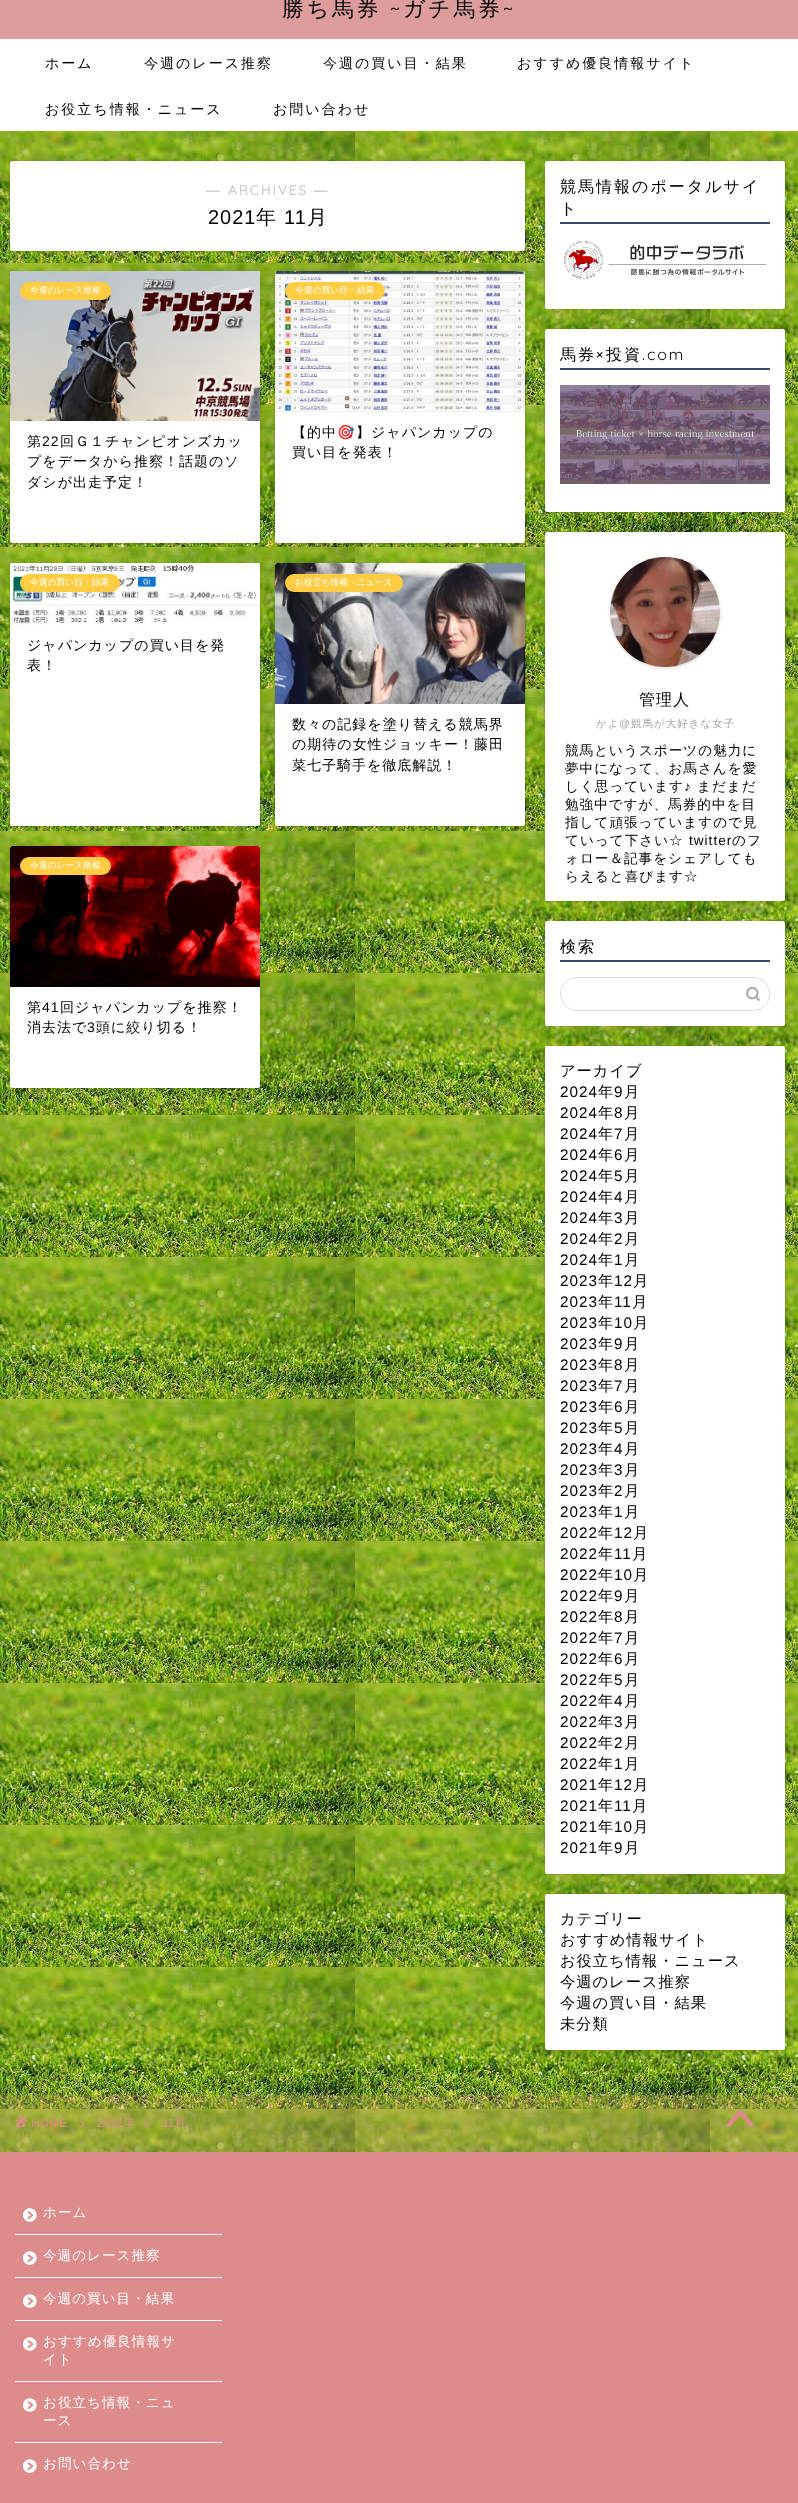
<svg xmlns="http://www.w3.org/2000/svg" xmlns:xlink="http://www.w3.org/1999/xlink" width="798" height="2503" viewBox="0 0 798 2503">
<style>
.cls-1{font:500 21.75px WenQuanYi Zen Hei;letter-spacing:3px;fill:#000000}
.cls-2{font:300 21.75px Quicksand;letter-spacing:3px;fill:#000000}
.cls-3{font:500 14px WenQuanYi Zen Hei;letter-spacing:2px;fill:#000000}
.cls-4{font:bold 13.6px Liberation Sans;letter-spacing:2px;fill:#cccccc}
.cls-5{font:bold 13.6px Quicksand;letter-spacing:2px;fill:#cccccc}
.cls-6{font:20px Liberation Sans;letter-spacing:1px;fill:#000000}
.cls-7{font:500 20px WenQuanYi Zen Hei;letter-spacing:1px;fill:#000000}
.cls-8{font:500 8.75px WenQuanYi Zen Hei;fill:#ffffff}
.cls-9{font:500 14px WenQuanYi Zen Hei;letter-spacing:1px;fill:#000000}
.cls-10{font:14px Liberation Sans;letter-spacing:1px;fill:#000000}
.cls-11{font:14px Noto Color Emoji;letter-spacing:1px;fill:#000000}
.cls-12{font:500 16px WenQuanYi Zen Hei;letter-spacing:2px;fill:#000000}
.cls-13{font:300 16px Quicksand;letter-spacing:2px;fill:#000000}
.cls-14{font:500 16px WenQuanYi Zen Hei;letter-spacing:1px;fill:#000000}
.cls-15{font:500 10.5px WenQuanYi Zen Hei;letter-spacing:1px;fill:#a6a6a6}
.cls-16{font:10.5px Liberation Sans;letter-spacing:1px;fill:#a6a6a6}
.cls-17{font:500 13.6px WenQuanYi Zen Hei;letter-spacing:1px;fill:#000000}
.cls-18{font:13.6px Liberation Sans;letter-spacing:1px;fill:#000000}
.cls-19{font:500 15.25px WenQuanYi Zen Hei;letter-spacing:1px;fill:#000000}
.cls-20{font:15.25px Liberation Sans;letter-spacing:1px;fill:#000000}
.cls-21{font:12px Liberation Sans;fill:#dd8b8b}
.cls-22{font:500 12px WenQuanYi Zen Hei;fill:#dd8b8b}
.cls-23{font:500 13.6px WenQuanYi Zen Hei;letter-spacing:1px;fill:#ffffff}
</style>
<rect width="100%" height="100%" fill="#ffffff"/>
<image xlink:href="image0.png" x="0" y="131" width="798" height="2021"/>
<rect fill="#dd9d9d" x="0" y="0" width="798" height="39"/>
<rect fill="#000000" fill-opacity="0.18" filter="blur(1px)" x="10" y="161" width="515" height="90" rx="2"/>
<rect fill="#ffffff" x="10" y="161" width="515" height="90" rx="2"/>
<rect fill="#000000" fill-opacity="0.18" filter="blur(1.5px)" x="10" y="272" width="250" height="272" rx="2"/>
<rect fill="#ffffff" x="10" y="271" width="250" height="272" rx="2"/>
<image xlink:href="image1.png" x="10" y="271" width="250" height="150"/>
<rect fill="#ffcd44" x="20" y="282" width="91" height="18" rx="9"/>
<rect fill="#000000" fill-opacity="0.18" filter="blur(1.5px)" x="275" y="272" width="250" height="272" rx="2"/>
<rect fill="#ffffff" x="275" y="271" width="250" height="272" rx="2"/>
<image xlink:href="image2.png" x="275" y="271" width="250" height="141"/>
<rect fill="#ffcd44" x="285" y="282" width="100" height="18" rx="9"/>
<rect fill="#000000" fill-opacity="0.18" filter="blur(1.5px)" x="10" y="564" width="250" height="263" rx="2"/>
<rect fill="#ffffff" x="10" y="563" width="250" height="263" rx="2"/>
<image xlink:href="image3.png" x="10" y="563" width="250" height="62"/>
<rect fill="#ffcd44" x="20" y="574" width="100" height="18" rx="9"/>
<rect fill="#000000" fill-opacity="0.18" filter="blur(1.5px)" x="275" y="564" width="250" height="263" rx="2"/>
<rect fill="#ffffff" x="275" y="563" width="250" height="263" rx="2"/>
<image xlink:href="image4.png" x="275" y="563" width="250" height="141"/>
<rect fill="#ffcd44" x="285" y="574" width="118" height="18" rx="9"/>
<rect fill="#000000" fill-opacity="0.18" filter="blur(1.5px)" x="10" y="847" width="250" height="242" rx="2"/>
<rect fill="#ffffff" x="10" y="846" width="250" height="242" rx="2"/>
<image xlink:href="image5.png" x="10" y="846" width="250" height="141"/>
<rect fill="#ffcd44" x="20" y="857" width="91" height="18" rx="9"/>
<rect fill="#000000" fill-opacity="0.18" filter="blur(1px)" x="545" y="161" width="240" height="148" rx="2"/>
<rect fill="#ffffff" x="545" y="161" width="240" height="148" rx="2"/>
<rect fill="#3b4675" x="560" y="222" width="210" height="2"/>
<image xlink:href="image6.png" x="564" y="240" width="203" height="40"/>
<rect fill="#000000" fill-opacity="0.18" filter="blur(1px)" x="545" y="329" width="240" height="183" rx="2"/>
<rect fill="#ffffff" x="545" y="329" width="240" height="183" rx="2"/>
<rect fill="#3b4675" x="560" y="368" width="210" height="2"/>
<image xlink:href="image7.png" x="560" y="385" width="210" height="99"/>
<rect fill="#000000" fill-opacity="0.18" filter="blur(1px)" x="545" y="532" width="240" height="369" rx="2"/>
<rect fill="#ffffff" x="545" y="532" width="240" height="369" rx="2"/>
<rect fill="#000000" fill-opacity="0.18" filter="blur(1.5px)" x="610" y="558" width="110" height="110" rx="55"/>
<circle fill="#ffffff" cx="665" cy="612" r="55"/>
<image xlink:href="image8.png" x="610" y="557" width="110" height="110"/>
<rect fill="#000000" fill-opacity="0.18" filter="blur(1px)" x="545" y="921" width="240" height="105" rx="2"/>
<rect fill="#ffffff" x="545" y="921" width="240" height="105" rx="2"/>
<rect fill="#3b4675" x="560" y="960" width="210" height="2"/>
<rect fill="none" stroke="#dddddd" x="560.5" y="977.5" width="209" height="33" rx="16.5"/>
<image xlink:href="image9.png" x="746" y="986" width="14" height="15"/>
<rect fill="#000000" fill-opacity="0.18" filter="blur(1px)" x="545" y="1046" width="240" height="828" rx="2"/>
<rect fill="#ffffff" x="545" y="1046" width="240" height="828" rx="2"/>
<rect fill="#000000" fill-opacity="0.18" filter="blur(1px)" x="545" y="1894" width="240" height="156" rx="2"/>
<rect fill="#ffffff" x="545" y="1894" width="240" height="156" rx="2"/>
<rect fill="#dd8b8b" fill-opacity="0.2" x="0" y="2095" width="798" height="57"/>
<image xlink:href="image10.png" x="15" y="2116" width="12" height="12"/>
<image xlink:href="image11.png" x="80" y="2121" width="5" height="7"/>
<image xlink:href="image12.png" x="145" y="2121" width="5" height="7"/>
<image xlink:href="image13.png" x="727" y="2109" width="27" height="18"/>
<rect fill="#dd8b8b" x="0" y="2152" width="798" height="351"/>
<rect fill="#ffffff" x="15" y="2234" width="207" height="1"/>
<image xlink:href="image14.png" x="23" y="2208" width="14" height="14"/>
<rect fill="#ffffff" x="15" y="2277" width="207" height="1"/>
<image xlink:href="image14.png" x="23" y="2251" width="14" height="14"/>
<rect fill="#ffffff" x="15" y="2320" width="207" height="1"/>
<image xlink:href="image14.png" x="23" y="2294" width="14" height="14"/>
<rect fill="#ffffff" x="15" y="2381" width="207" height="1"/>
<image xlink:href="image14.png" x="23" y="2337" width="14" height="14"/>
<rect fill="#ffffff" x="15" y="2442" width="207" height="1"/>
<image xlink:href="image14.png" x="23" y="2398" width="14" height="14"/>
<image xlink:href="image14.png" x="23" y="2459" width="14" height="14"/>
<text class="cls-1" x="282" y="16">勝ち馬券</text>
<text class="cls-2" x="390" y="16">~</text>
<text class="cls-1" x="403" y="16">ガチ馬券</text>
<text class="cls-2" x="503" y="16">~</text>
<text class="cls-3" x="45" y="68">ホーム</text>
<text class="cls-3" x="144" y="68">今週のレース推察</text>
<text class="cls-3" x="323" y="68">今週の買い目・結果</text>
<text class="cls-3" x="517" y="68">おすすめ優良情報サイト</text>
<text class="cls-3" x="45" y="114">お役立ち情報・ニュース</text>
<text class="cls-3" x="273" y="114">お問い合わせ</text>
<text class="cls-4" x="206" y="195">―</text>
<text class="cls-5" x="228" y="195">ARCHIVES</text>
<text class="cls-4" x="314" y="195">―</text>
<text class="cls-6" x="208" y="224">2021</text>
<text class="cls-7" x="256" y="224">年</text>
<text class="cls-6" x="284" y="224">11</text>
<text class="cls-7" x="307" y="224">月</text>
<text class="cls-8" x="30" y="293">今週のレース推察</text>
<text class="cls-9" x="27" y="446">第</text>
<text class="cls-10" x="42" y="446">22</text>
<text class="cls-9" x="60" y="446">回Ｇ１チャンピオンズカッ</text>
<text class="cls-9"><tspan x="27" y="466">プをデータから推察！話題のソ</tspan><tspan x="27" y="487">ダシが出走予定！</tspan></text>
<text class="cls-8" x="295" y="293">今週の買い目・結果</text>
<text class="cls-9" x="292" y="437">【的中</text>
<text class="cls-11" x="337" y="437">🎯</text>
<text class="cls-9" x="356" y="437">】ジャパンカップの</text>
<text class="cls-9" x="292" y="457">買い目を発表！</text>
<text class="cls-8" x="30" y="585">今週の買い目・結果</text>
<text class="cls-9"><tspan x="27" y="650">ジャパンカップの買い目を発</tspan><tspan x="27" y="670">表！</tspan></text>
<text class="cls-8" x="295" y="585">お役立ち情報・ニュース</text>
<text class="cls-9"><tspan x="292" y="729">数々の記録を塗り替える競馬界</tspan><tspan x="292" y="749">の期待の女性ジョッキー！藤田</tspan><tspan x="292" y="770">菜七子騎手を徹底解説！</tspan></text>
<text class="cls-8" x="30" y="868">今週のレース推察</text>
<text class="cls-9" x="27" y="1012">第</text>
<text class="cls-10" x="42" y="1012">41</text>
<text class="cls-9" x="60" y="1012">回ジャパンカップを推察！</text>
<text class="cls-9" x="27" y="1032">消去法で</text>
<text class="cls-10" x="87" y="1032">3</text>
<text class="cls-9" x="96" y="1032">頭に絞り切る！</text>
<text class="cls-12"><tspan x="560" y="192">競馬情報のポータルサイ</tspan><tspan x="560" y="214">ト</tspan></text>
<text class="cls-12" x="560" y="360">馬券</text>
<text class="cls-13" x="596" y="360">×</text>
<text class="cls-12" x="606" y="360">投資</text>
<text class="cls-13" x="642" y="360">.com</text>
<text class="cls-14" x="639" y="705">管理人</text>
<text class="cls-15" x="596" y="727">かよ</text>
<text class="cls-16" x="619" y="727">@</text>
<text class="cls-15" x="631" y="727">競馬が大好きな女子</text>
<text class="cls-17"><tspan x="565" y="755">競馬というスポーツの魅力に</tspan><tspan x="565" y="773">夢中になって、お馬さんを愛</tspan><tspan x="565" y="791">しく思っています</tspan></text>
<text class="cls-18" x="684" y="791">♪</text>
<text class="cls-17" x="697" y="791">まだまだ</text>
<text class="cls-17"><tspan x="565" y="809">勉強中ですが、馬券的中を目</tspan><tspan x="565" y="827">指して頑張っていますので見</tspan><tspan x="565" y="845">ていって下さい☆</tspan></text>
<text class="cls-18" x="689" y="845">twitter</text>
<text class="cls-17" x="732" y="845">のフ</text>
<text class="cls-17"><tspan x="565" y="863">ォロー＆記事をシェアしても</tspan><tspan x="565" y="881">らえると喜びます☆</tspan></text>
<text class="cls-12" x="560" y="952">検索</text>
<text class="cls-19" x="560" y="1076">アーカイブ</text>
<text class="cls-20" x="560" y="1097">2024</text>
<text class="cls-19" x="598" y="1097">年</text>
<text class="cls-20" x="614" y="1097">9</text>
<text class="cls-19" x="624" y="1097">月</text>
<text class="cls-20" x="560" y="1118">2024</text>
<text class="cls-19" x="598" y="1118">年</text>
<text class="cls-20" x="614" y="1118">8</text>
<text class="cls-19" x="624" y="1118">月</text>
<text class="cls-20" x="560" y="1139">2024</text>
<text class="cls-19" x="598" y="1139">年</text>
<text class="cls-20" x="614" y="1139">7</text>
<text class="cls-19" x="624" y="1139">月</text>
<text class="cls-20" x="560" y="1160">2024</text>
<text class="cls-19" x="598" y="1160">年</text>
<text class="cls-20" x="614" y="1160">6</text>
<text class="cls-19" x="624" y="1160">月</text>
<text class="cls-20" x="560" y="1181">2024</text>
<text class="cls-19" x="598" y="1181">年</text>
<text class="cls-20" x="614" y="1181">5</text>
<text class="cls-19" x="624" y="1181">月</text>
<text class="cls-20" x="560" y="1202">2024</text>
<text class="cls-19" x="598" y="1202">年</text>
<text class="cls-20" x="614" y="1202">4</text>
<text class="cls-19" x="624" y="1202">月</text>
<text class="cls-20" x="560" y="1223">2024</text>
<text class="cls-19" x="598" y="1223">年</text>
<text class="cls-20" x="614" y="1223">3</text>
<text class="cls-19" x="624" y="1223">月</text>
<text class="cls-20" x="560" y="1244">2024</text>
<text class="cls-19" x="598" y="1244">年</text>
<text class="cls-20" x="614" y="1244">2</text>
<text class="cls-19" x="624" y="1244">月</text>
<text class="cls-20" x="560" y="1265">2024</text>
<text class="cls-19" x="598" y="1265">年</text>
<text class="cls-20" x="614" y="1265">1</text>
<text class="cls-19" x="624" y="1265">月</text>
<text class="cls-20" x="560" y="1286">2023</text>
<text class="cls-19" x="598" y="1286">年</text>
<text class="cls-20" x="614" y="1286">12</text>
<text class="cls-19" x="633" y="1286">月</text>
<text class="cls-20" x="560" y="1307">2023</text>
<text class="cls-19" x="598" y="1307">年</text>
<text class="cls-20" x="614" y="1307">11</text>
<text class="cls-19" x="632" y="1307">月</text>
<text class="cls-20" x="560" y="1328">2023</text>
<text class="cls-19" x="598" y="1328">年</text>
<text class="cls-20" x="614" y="1328">10</text>
<text class="cls-19" x="633" y="1328">月</text>
<text class="cls-20" x="560" y="1349">2023</text>
<text class="cls-19" x="598" y="1349">年</text>
<text class="cls-20" x="614" y="1349">9</text>
<text class="cls-19" x="624" y="1349">月</text>
<text class="cls-20" x="560" y="1370">2023</text>
<text class="cls-19" x="598" y="1370">年</text>
<text class="cls-20" x="614" y="1370">8</text>
<text class="cls-19" x="624" y="1370">月</text>
<text class="cls-20" x="560" y="1391">2023</text>
<text class="cls-19" x="598" y="1391">年</text>
<text class="cls-20" x="614" y="1391">7</text>
<text class="cls-19" x="624" y="1391">月</text>
<text class="cls-20" x="560" y="1412">2023</text>
<text class="cls-19" x="598" y="1412">年</text>
<text class="cls-20" x="614" y="1412">6</text>
<text class="cls-19" x="624" y="1412">月</text>
<text class="cls-20" x="560" y="1433">2023</text>
<text class="cls-19" x="598" y="1433">年</text>
<text class="cls-20" x="614" y="1433">5</text>
<text class="cls-19" x="624" y="1433">月</text>
<text class="cls-20" x="560" y="1454">2023</text>
<text class="cls-19" x="598" y="1454">年</text>
<text class="cls-20" x="614" y="1454">4</text>
<text class="cls-19" x="624" y="1454">月</text>
<text class="cls-20" x="560" y="1475">2023</text>
<text class="cls-19" x="598" y="1475">年</text>
<text class="cls-20" x="614" y="1475">3</text>
<text class="cls-19" x="624" y="1475">月</text>
<text class="cls-20" x="560" y="1496">2023</text>
<text class="cls-19" x="598" y="1496">年</text>
<text class="cls-20" x="614" y="1496">2</text>
<text class="cls-19" x="624" y="1496">月</text>
<text class="cls-20" x="560" y="1517">2023</text>
<text class="cls-19" x="598" y="1517">年</text>
<text class="cls-20" x="614" y="1517">1</text>
<text class="cls-19" x="624" y="1517">月</text>
<text class="cls-20" x="560" y="1538">2022</text>
<text class="cls-19" x="598" y="1538">年</text>
<text class="cls-20" x="614" y="1538">12</text>
<text class="cls-19" x="633" y="1538">月</text>
<text class="cls-20" x="560" y="1559">2022</text>
<text class="cls-19" x="598" y="1559">年</text>
<text class="cls-20" x="614" y="1559">11</text>
<text class="cls-19" x="632" y="1559">月</text>
<text class="cls-20" x="560" y="1580">2022</text>
<text class="cls-19" x="598" y="1580">年</text>
<text class="cls-20" x="614" y="1580">10</text>
<text class="cls-19" x="633" y="1580">月</text>
<text class="cls-20" x="560" y="1601">2022</text>
<text class="cls-19" x="598" y="1601">年</text>
<text class="cls-20" x="614" y="1601">9</text>
<text class="cls-19" x="624" y="1601">月</text>
<text class="cls-20" x="560" y="1622">2022</text>
<text class="cls-19" x="598" y="1622">年</text>
<text class="cls-20" x="614" y="1622">8</text>
<text class="cls-19" x="624" y="1622">月</text>
<text class="cls-20" x="560" y="1643">2022</text>
<text class="cls-19" x="598" y="1643">年</text>
<text class="cls-20" x="614" y="1643">7</text>
<text class="cls-19" x="624" y="1643">月</text>
<text class="cls-20" x="560" y="1664">2022</text>
<text class="cls-19" x="598" y="1664">年</text>
<text class="cls-20" x="614" y="1664">6</text>
<text class="cls-19" x="624" y="1664">月</text>
<text class="cls-20" x="560" y="1685">2022</text>
<text class="cls-19" x="598" y="1685">年</text>
<text class="cls-20" x="614" y="1685">5</text>
<text class="cls-19" x="624" y="1685">月</text>
<text class="cls-20" x="560" y="1706">2022</text>
<text class="cls-19" x="598" y="1706">年</text>
<text class="cls-20" x="614" y="1706">4</text>
<text class="cls-19" x="624" y="1706">月</text>
<text class="cls-20" x="560" y="1727">2022</text>
<text class="cls-19" x="598" y="1727">年</text>
<text class="cls-20" x="614" y="1727">3</text>
<text class="cls-19" x="624" y="1727">月</text>
<text class="cls-20" x="560" y="1748">2022</text>
<text class="cls-19" x="598" y="1748">年</text>
<text class="cls-20" x="614" y="1748">2</text>
<text class="cls-19" x="624" y="1748">月</text>
<text class="cls-20" x="560" y="1769">2022</text>
<text class="cls-19" x="598" y="1769">年</text>
<text class="cls-20" x="614" y="1769">1</text>
<text class="cls-19" x="624" y="1769">月</text>
<text class="cls-20" x="560" y="1790">2021</text>
<text class="cls-19" x="598" y="1790">年</text>
<text class="cls-20" x="614" y="1790">12</text>
<text class="cls-19" x="633" y="1790">月</text>
<text class="cls-20" x="560" y="1811">2021</text>
<text class="cls-19" x="598" y="1811">年</text>
<text class="cls-20" x="614" y="1811">11</text>
<text class="cls-19" x="632" y="1811">月</text>
<text class="cls-20" x="560" y="1832">2021</text>
<text class="cls-19" x="598" y="1832">年</text>
<text class="cls-20" x="614" y="1832">10</text>
<text class="cls-19" x="633" y="1832">月</text>
<text class="cls-20" x="560" y="1853">2021</text>
<text class="cls-19" x="598" y="1853">年</text>
<text class="cls-20" x="614" y="1853">9</text>
<text class="cls-19" x="624" y="1853">月</text>
<text class="cls-19"><tspan x="560" y="1924">カテゴリー</tspan><tspan x="560" y="1945">おすすめ情報サイト</tspan><tspan x="560" y="1966">お役立ち情報・ニュース</tspan><tspan x="560" y="1987">今週のレース推察</tspan><tspan x="560" y="2008">今週の買い目・結果</tspan><tspan x="560" y="2029">未分類</tspan></text>
<text class="cls-21" x="31" y="2127">HOME</text>
<text class="cls-21" x="97" y="2127">2021</text>
<text class="cls-22" x="123" y="2127">年</text>
<text class="cls-21" x="162" y="2127">11</text>
<text class="cls-22" x="174" y="2127">月</text>
<text class="cls-23" x="43" y="2217">ホーム</text>
<text class="cls-23" x="43" y="2260">今週のレース推察</text>
<text class="cls-23" x="43" y="2303">今週の買い目・結果</text>
<text class="cls-23"><tspan x="43" y="2346">おすすめ優良情報サ</tspan><tspan x="43" y="2364">イト</tspan></text>
<text class="cls-23"><tspan x="43" y="2407">お役立ち情報・ニュ</tspan><tspan x="43" y="2425">ース</tspan></text>
<text class="cls-23" x="43" y="2468">お問い合わせ</text>
</svg>
